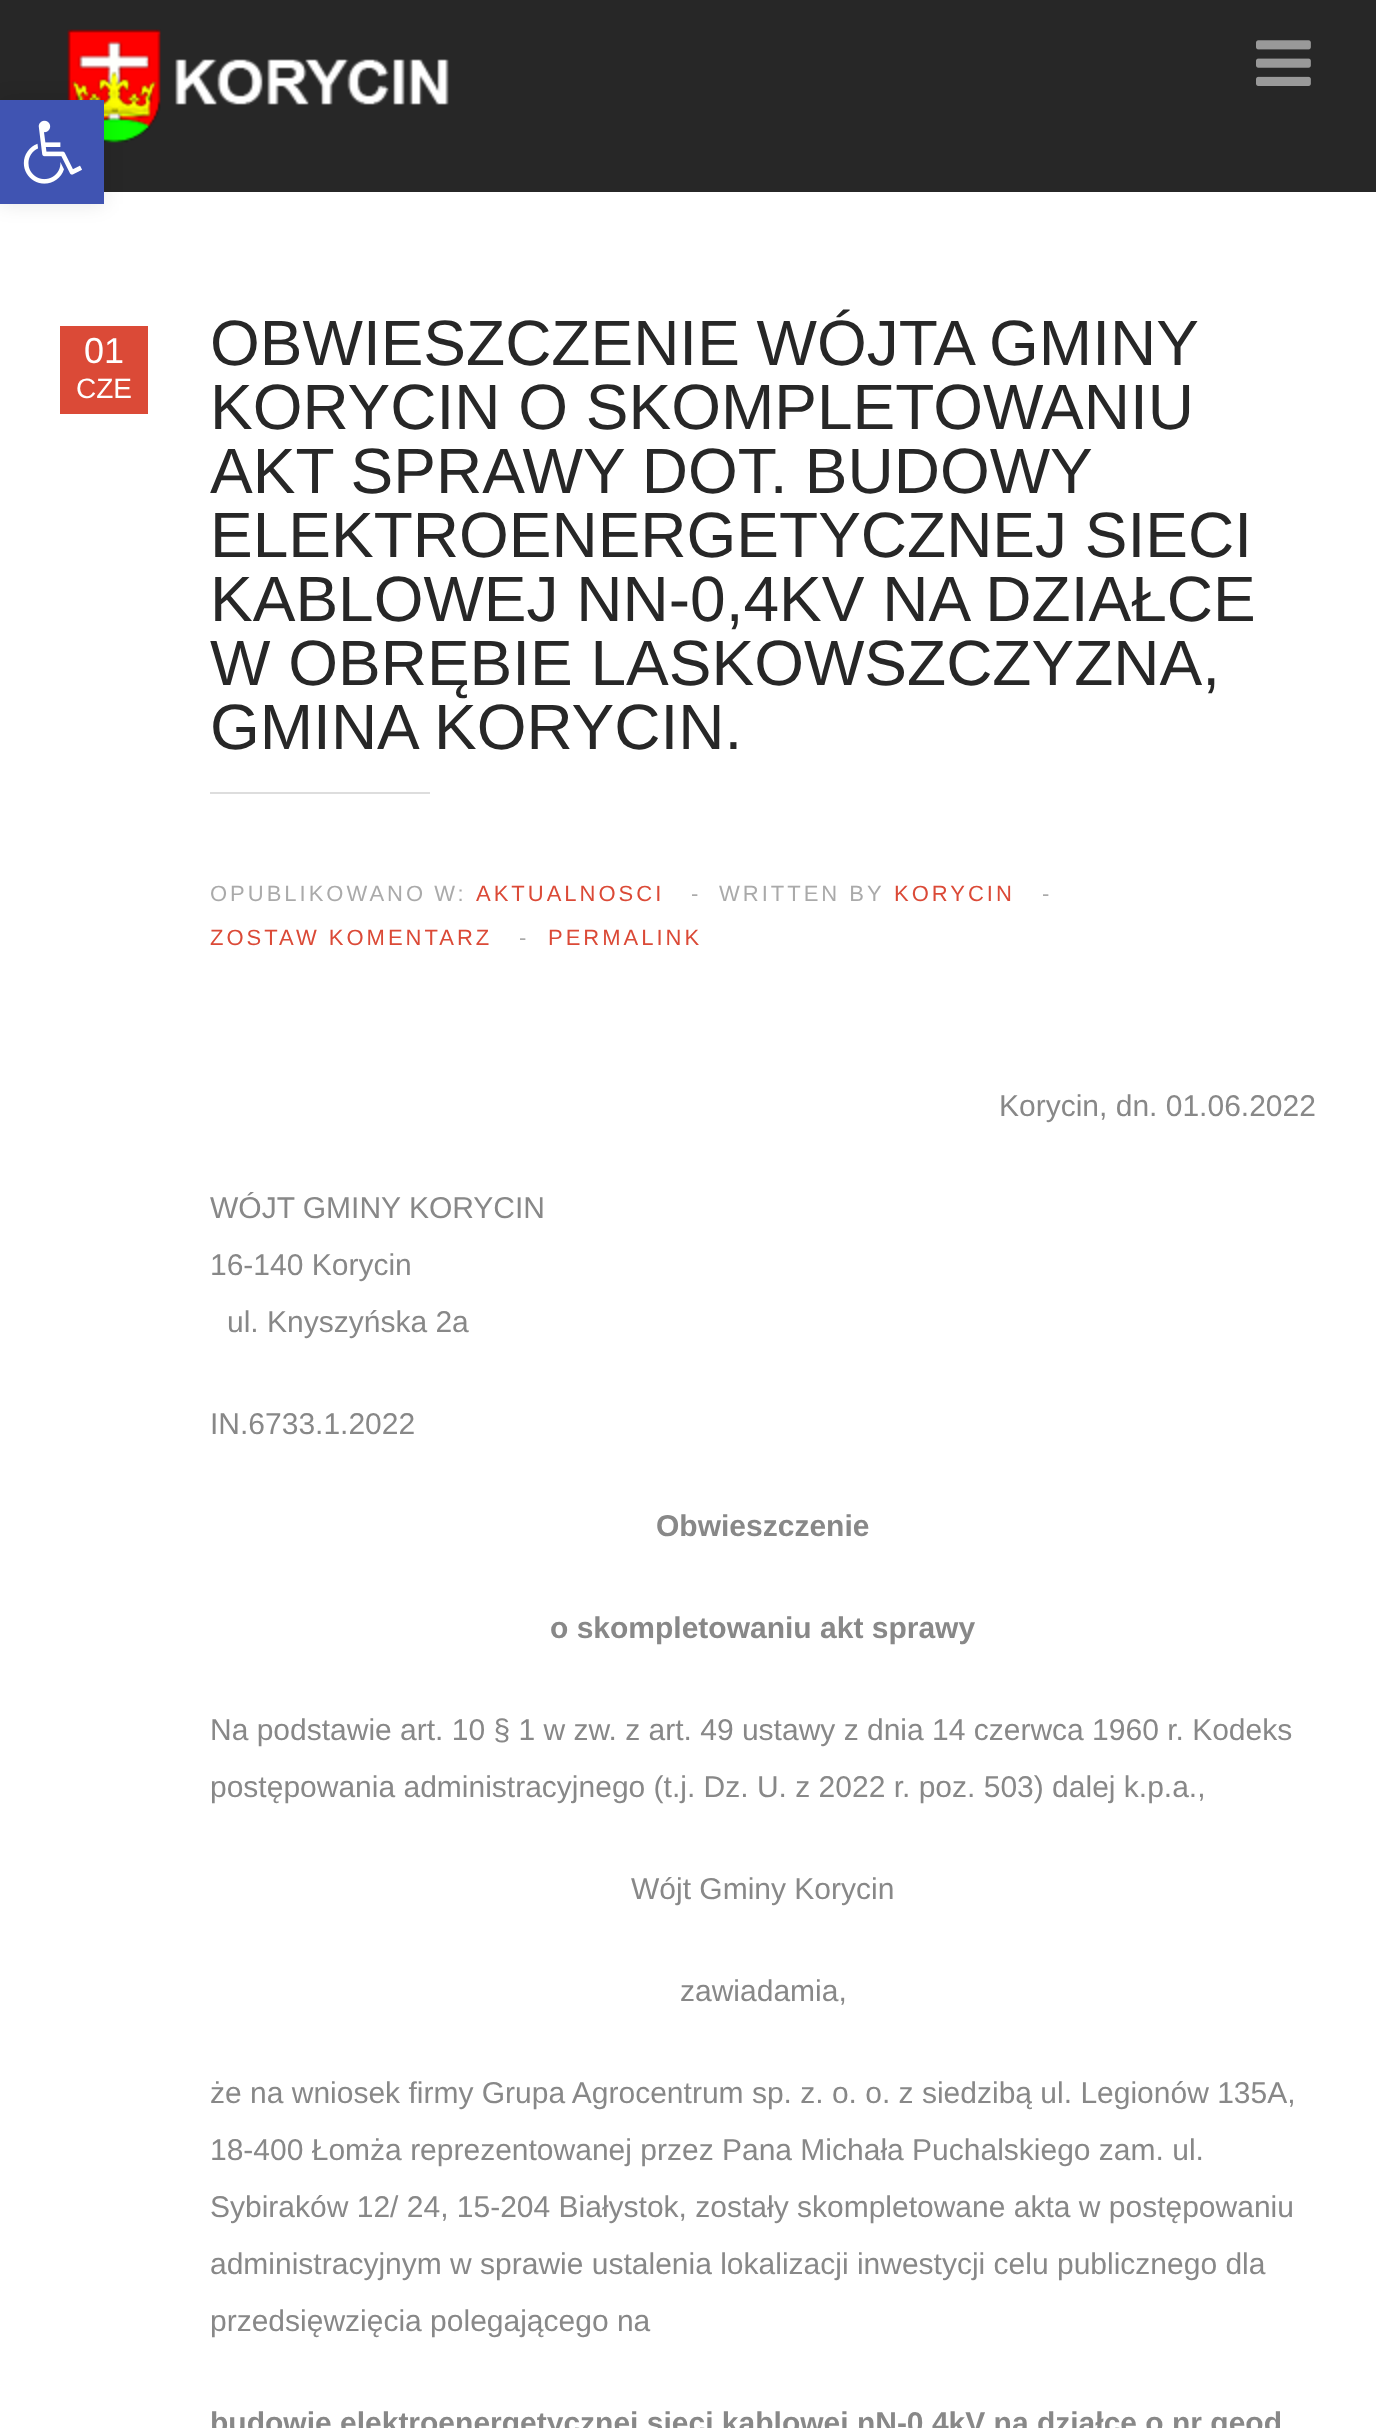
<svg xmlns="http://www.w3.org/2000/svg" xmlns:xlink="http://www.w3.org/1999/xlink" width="1376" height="2428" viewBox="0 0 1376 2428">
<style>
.cls-1{font:36px Liberation Sans;fill:#ffffff}
.cls-2{font:28px Liberation Sans;fill:#ffffff}
.cls-3{font:64px Liberation Sans;fill:#272727}
.cls-4{font:22px Liberation Sans;letter-spacing:3px;fill:#aaaaaa}
.cls-5{font:22px Liberation Sans;letter-spacing:3px;fill:#db4a37}
.cls-6{font:30px Liberation Sans;fill:#888888}
.cls-7{font:bold 30px Liberation Sans;fill:#888888}
</style>
<rect width="100%" height="100%" fill="#272727"/>
<image xlink:href="image1.png" x="67" y="29" width="382" height="114"/>
<rect fill="#ffffff" x="0" y="192" width="1376" height="2236"/>
<rect fill="#000000" fill-opacity="0.1" filter="blur(10px)" x="0" y="100" width="104" height="104"/>
<rect fill="#4054b2" x="0" y="100" width="104" height="104"/>
<image xlink:href="image0.png" x="23" y="120" width="59" height="64"/>
<image xlink:href="image2.png" x="1256" y="40" width="55" height="46"/>
<rect fill="#db4a37" x="60" y="326" width="88" height="88"/>
<rect fill="#dddddd" x="210" y="792" width="220" height="2"/>
<text class="cls-1" x="84" y="363">01</text>
<text class="cls-2" x="76" y="398">CZE</text>
<text class="cls-3"><tspan x="210" y="365" word-spacing="-1">OBWIESZCZENIE WÓJTA GMINY</tspan><tspan x="210" y="429">KORYCIN O SKOMPLETOWANIU</tspan><tspan x="210" y="493" word-spacing="-0.5">AKT SPRAWY DOT. BUDOWY</tspan><tspan x="210" y="557">ELEKTROENERGETYCZNEJ SIECI</tspan><tspan x="210" y="621">KABLOWEJ NN-0,4KV NA DZIAŁCE</tspan><tspan x="210" y="685">W OBRĘBIE LASKOWSZCZYZNA,</tspan><tspan x="210" y="749">GMINA KORYCIN.</tspan></text>
<text class="cls-4" x="210" y="901" word-spacing="-1">OPUBLIKOWANO W:</text>
<text class="cls-5" x="476" y="901">AKTUALNOSCI</text>
<text class="cls-4" x="691" y="901">-</text>
<text class="cls-4" x="719" y="901">WRITTEN BY</text>
<text class="cls-5" x="894" y="901">KORYCIN</text>
<text class="cls-4" x="1042" y="901">-</text>
<text class="cls-5" x="210" y="945">ZOSTAW KOMENTARZ</text>
<text class="cls-4" x="519" y="945">-</text>
<text class="cls-5" x="548" y="945">PERMALINK</text>
<text class="cls-6" x="999" y="1116">Korycin, dn. 01.06.2022</text>
<text class="cls-6"><tspan x="210" y="1218">WÓJT GMINY KORYCIN</tspan><tspan x="210" y="1275">16-140 Korycin</tspan></text>
<text class="cls-6" x="227" y="1332">ul. Knyszyńska 2a</text>
<text class="cls-6" x="210" y="1434">IN.6733.1.2022</text>
<text class="cls-7" x="656" y="1536">Obwieszczenie</text>
<text class="cls-7" x="550" y="1638">o skompletowaniu akt sprawy</text>
<text class="cls-6"><tspan x="210" y="1740">Na podstawie art. 10 § 1 w zw. z art. 49 ustawy z dnia 14 czerwca 1960 r. Kodeks</tspan><tspan x="210" y="1797">postępowania administracyjnego (t.j. Dz. U. z 2022 r. poz. 503) dalej k.p.a.,</tspan></text>
<text class="cls-6" x="631" y="1899">Wójt Gminy Korycin</text>
<text class="cls-6" x="680" y="2001">zawiadamia,</text>
<text class="cls-6"><tspan x="210" y="2103">że na wniosek firmy Grupa Agrocentrum sp. z. o. o. z siedzibą ul. Legionów 135A,</tspan><tspan x="210" y="2160">18-400 Łomża reprezentowanej przez Pana Michała Puchalskiego zam. ul.</tspan><tspan x="210" y="2217">Sybiraków 12/ 24, 15-204 Białystok, zostały skompletowane akta w postępowaniu</tspan><tspan x="210" y="2274">administracyjnym w sprawie ustalenia lokalizacji inwestycji celu publicznego dla</tspan><tspan x="210" y="2331">przedsięwzięcia polegającego na</tspan></text>
<text class="cls-7" x="210" y="2433">budowie elektroenergetycznej sieci kablowej nN-0,4kV na działce o nr geod</text>
</svg>
